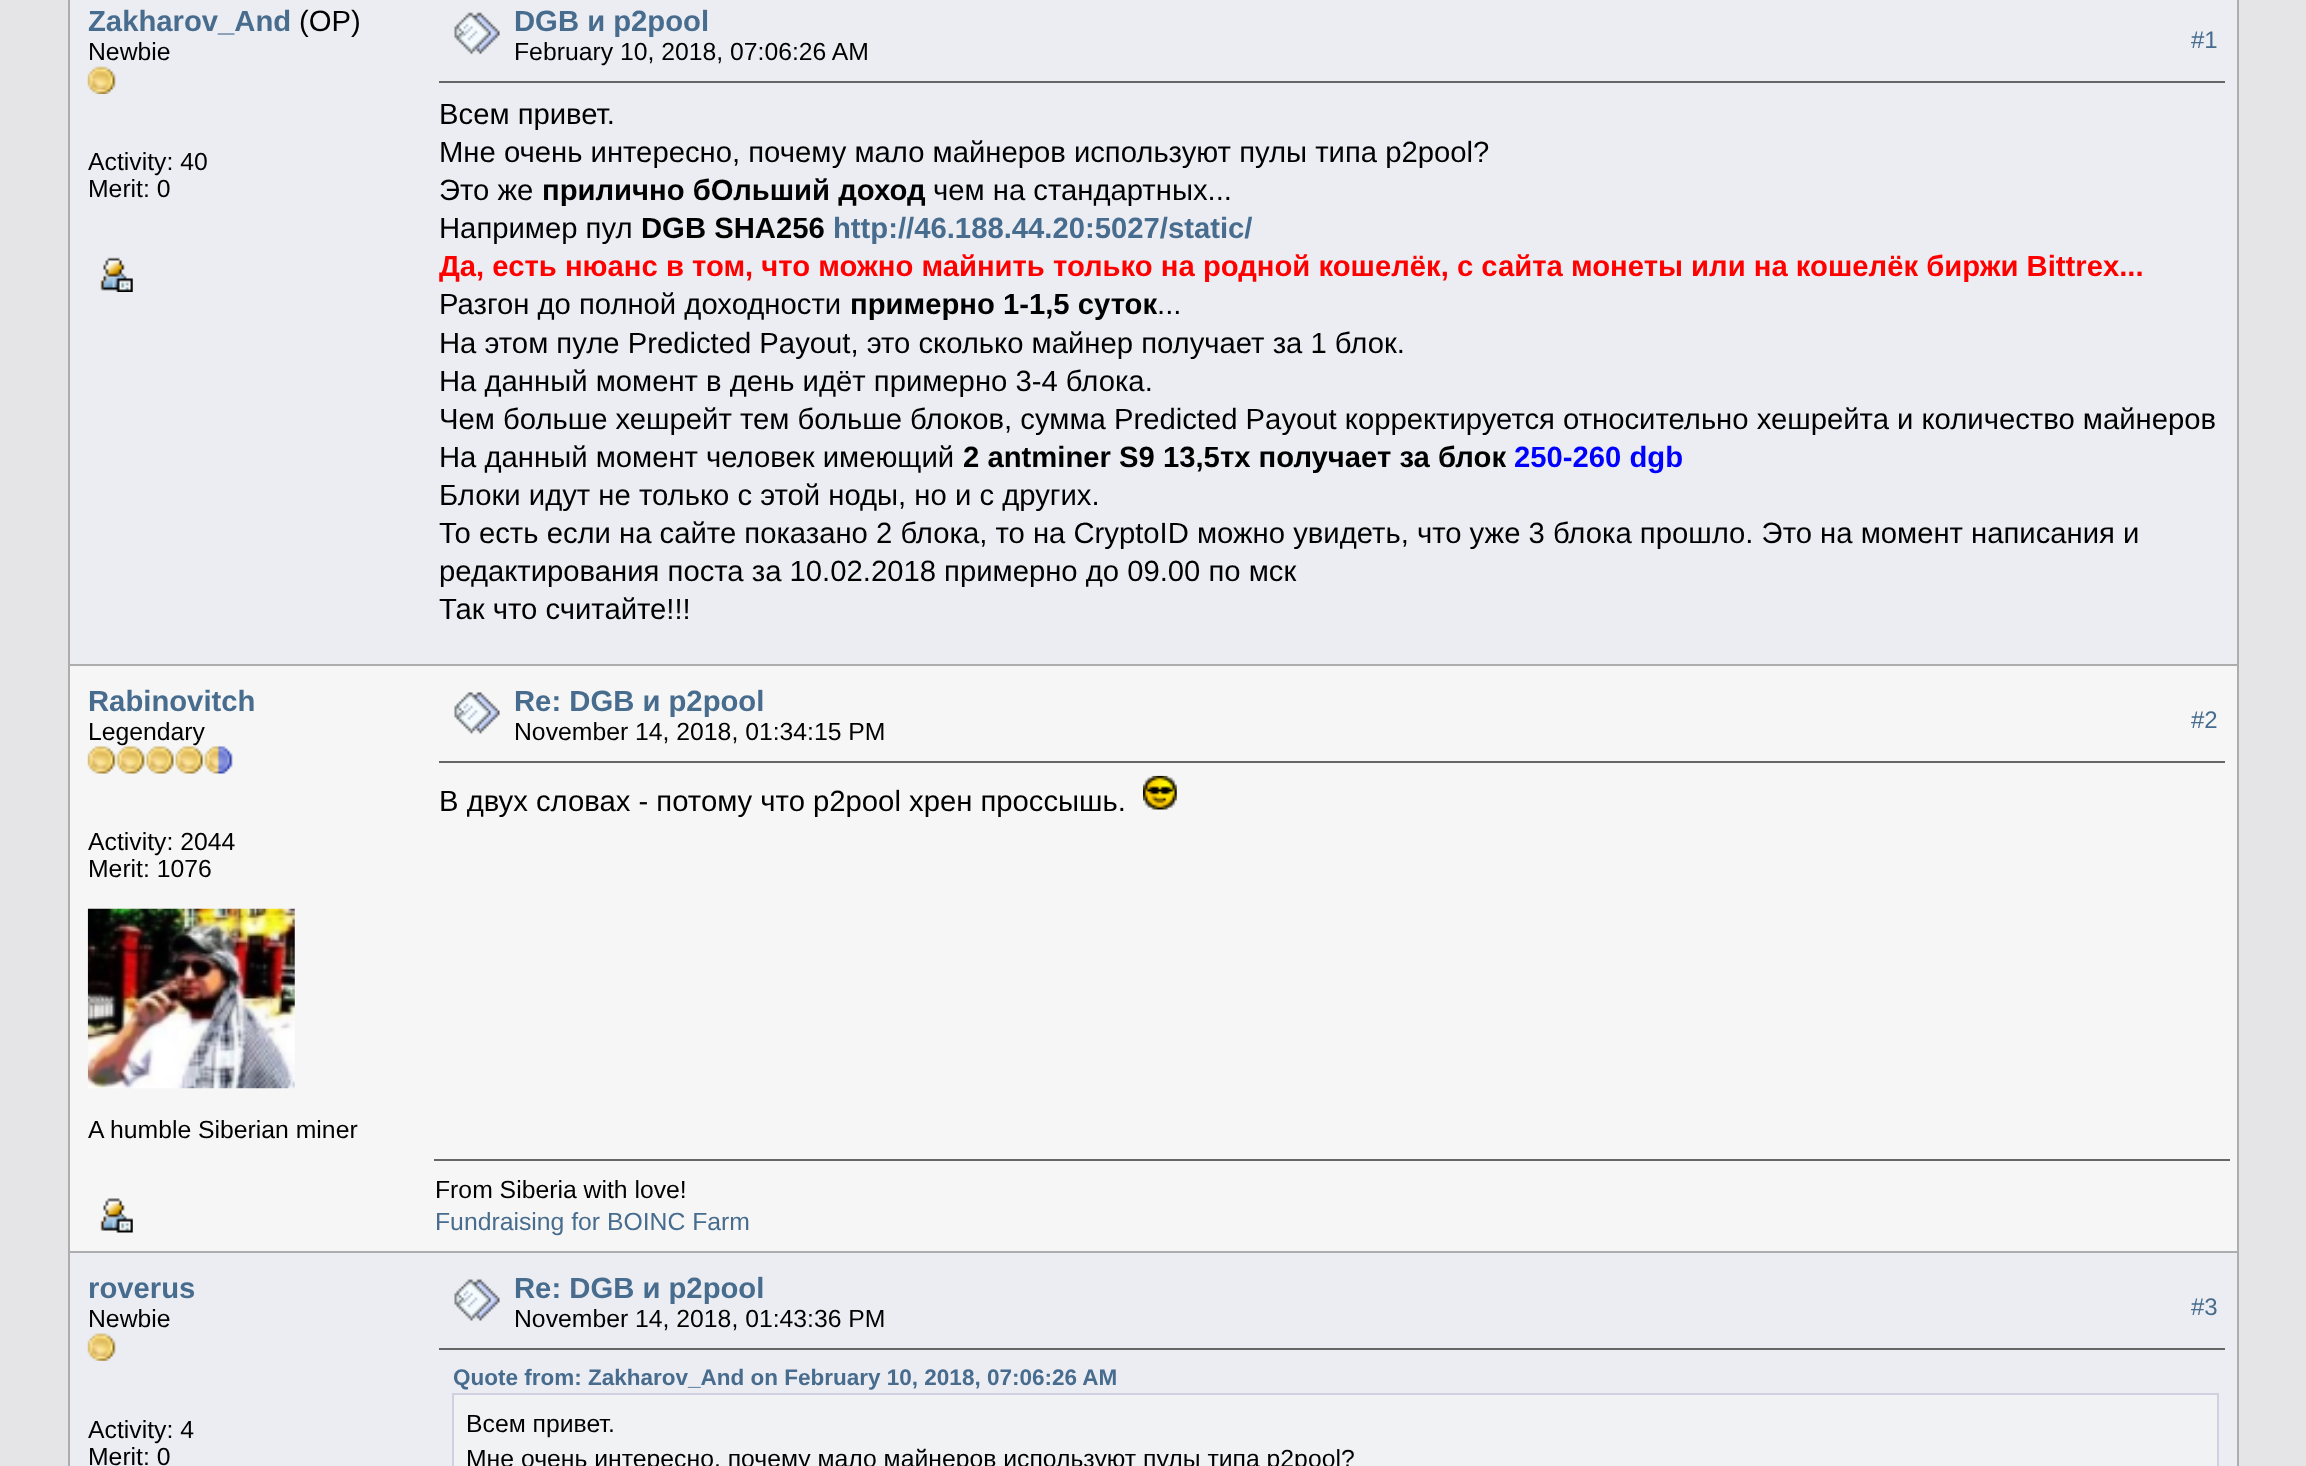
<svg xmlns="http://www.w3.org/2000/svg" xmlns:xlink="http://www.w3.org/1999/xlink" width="2306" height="1466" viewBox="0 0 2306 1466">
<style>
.cls-1{font:bold 29.25px Liberation Sans;fill:#476c8e}
.cls-2{font:29.25px Liberation Sans;fill:#000000}
.cls-3{font:24.75px Liberation Sans;fill:#000000}
.cls-4{font:24px Liberation Sans;fill:#476c8e}
.cls-5{font:bold 29.25px Liberation Sans;fill:#000000}
.cls-6{font:bold 29.25px Liberation Sans;fill:#ff0000}
.cls-7{font:bold 29.25px Liberation Sans;fill:#0000ff}
.cls-8{font:24.75px Liberation Sans;fill:#476c8e}
.cls-9{font:bold 22.5px Liberation Sans;fill:#476c8e}
</style>
<rect width="100%" height="100%" fill="#e5e5e8"/>
<rect fill="#adadad" x="68" y="0" width="2171" height="1466"/>
<rect fill="#ecedf3" x="70" y="0" width="2167" height="664"/>
<image xlink:href="image0.png" x="87" y="66" width="29" height="28"/>
<image xlink:href="image1.png" x="100" y="257" width="33" height="35"/>
<image xlink:href="image2.png" x="454" y="12" width="46" height="43"/>
<rect fill="#666666" x="439" y="81" width="1786" height="2"/>
<rect fill="#f6f6f6" x="70" y="666" width="2167" height="585"/>
<image xlink:href="image3.png" x="87" y="746" width="146" height="28"/>
<image xlink:href="image4.png" x="87" y="908" width="208" height="181"/>
<image xlink:href="image5.png" x="100" y="1198" width="33" height="35"/>
<image xlink:href="image6.png" x="454" y="692" width="46" height="42"/>
<rect fill="#666666" x="439" y="761" width="1786" height="2"/>
<image xlink:href="image7.png" x="1143" y="775" width="34" height="35"/>
<rect fill="#666666" x="434" y="1159" width="1796" height="2"/>
<rect fill="#ecedf3" x="70" y="1253" width="2167" height="213"/>
<image xlink:href="image8.png" x="87" y="1333" width="29" height="28"/>
<image xlink:href="image9.png" x="454" y="1279" width="46" height="42"/>
<rect fill="#666666" x="439" y="1348" width="1786" height="2"/>
<rect fill="#f1f2f4" stroke="#d0d0e0" stroke-width="2" x="453" y="1394" width="1765" height="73"/>
<text class="cls-1" x="88" y="31">Zakharov_And</text>
<text class="cls-2" x="299" y="31">(OP)</text>
<text class="cls-3" x="88" y="60">Newbie</text>
<text class="cls-3"><tspan x="88" y="170">Activity: 40</tspan><tspan x="88" y="197">Merit: 0</tspan></text>
<text class="cls-1" x="514" y="31">DGB и p2pool</text>
<text class="cls-3" x="514" y="60">February 10, 2018, 07:06:26 AM</text>
<text class="cls-4" x="2191" y="48">#1</text>
<text class="cls-2"><tspan x="439" y="124">Всем привет.</tspan><tspan x="439" y="162">Мне очень интересно, почему мало майнеров используют пулы типа p2pool?</tspan><tspan x="439" y="200">Это же</tspan></text>
<text class="cls-5" x="542" y="200">прилично бОльший доход</text>
<text class="cls-2" x="933" y="200">чем на стандартных...</text>
<text class="cls-2" x="439" y="238">Например пул</text>
<text class="cls-5" x="641" y="238">DGB SHA256</text>
<text class="cls-1" x="833" y="238">http://46.188.44.20:5027/static/</text>
<text class="cls-6" x="439" y="276">Да, есть нюанс в том, что можно майнить только на родной кошелёк, с сайта монеты или на кошелёк биржи Bittrex...</text>
<text class="cls-2" x="439" y="314">Разгон до полной доходности</text>
<text class="cls-5" x="850" y="314">примерно 1-1,5 суток</text>
<text class="cls-2" x="1157" y="314">...</text>
<text class="cls-2"><tspan x="439" y="353">На этом пуле Predicted Payout, это сколько майнер получает за 1 блок.</tspan><tspan x="439" y="391">На данный момент в день идёт примерно 3-4 блока.</tspan><tspan x="439" y="429">Чем больше хешрейт тем больше блоков, сумма Predicted Payout корректируется относительно хешрейта и количество майнеров</tspan><tspan x="439" y="467">На данный момент человек имеющий</tspan></text>
<text class="cls-5" x="963" y="467">2 antminer S9 13,5тх получает за блок</text>
<text class="cls-7" x="1514" y="467">250-260 dgb</text>
<text class="cls-2"><tspan x="439" y="505">Блоки идут не только с этой ноды, но и с других.</tspan><tspan x="439" y="543">То есть если на сайте показано 2 блока, то на CryptoID можно увидеть, что уже 3 блока прошло. Это на момент написания и</tspan><tspan x="439" y="581">редактирования поста за 10.02.2018 примерно до 09.00 по мск</tspan><tspan x="439" y="619">Так что считайте!!!</tspan></text>
<text class="cls-1" x="88" y="711">Rabinovitch</text>
<text class="cls-3" x="88" y="740">Legendary</text>
<text class="cls-3"><tspan x="88" y="850">Activity: 2044</tspan><tspan x="88" y="877">Merit: 1076</tspan></text>
<text class="cls-3" x="88" y="1138">A humble Siberian miner</text>
<text class="cls-1" x="514" y="711">Re: DGB и p2pool</text>
<text class="cls-3" x="514" y="740">November 14, 2018, 01:34:15 PM</text>
<text class="cls-4" x="2191" y="728">#2</text>
<text class="cls-2" x="439" y="811">В двух словах - потому что p2pool хрен проссышь.</text>
<text class="cls-3" x="435" y="1198">From Siberia with love!</text>
<text class="cls-8" x="435" y="1230">Fundraising for BOINC Farm</text>
<text class="cls-1" x="88" y="1298">roverus</text>
<text class="cls-3" x="88" y="1327">Newbie</text>
<text class="cls-3"><tspan x="88" y="1438">Activity: 4</tspan><tspan x="88" y="1465">Merit: 0</tspan></text>
<text class="cls-1" x="514" y="1298">Re: DGB и p2pool</text>
<text class="cls-3" x="514" y="1327">November 14, 2018, 01:43:36 PM</text>
<text class="cls-4" x="2191" y="1315">#3</text>
<text class="cls-9" x="453" y="1385">Quote from: Zakharov_And on February 10, 2018, 07:06:26 AM</text>
<text class="cls-3"><tspan x="466" y="1432">Всем привет.</tspan><tspan x="466" y="1467">Мне очень интересно, почему мало майнеров используют пулы типа p2pool?</tspan></text>
</svg>
